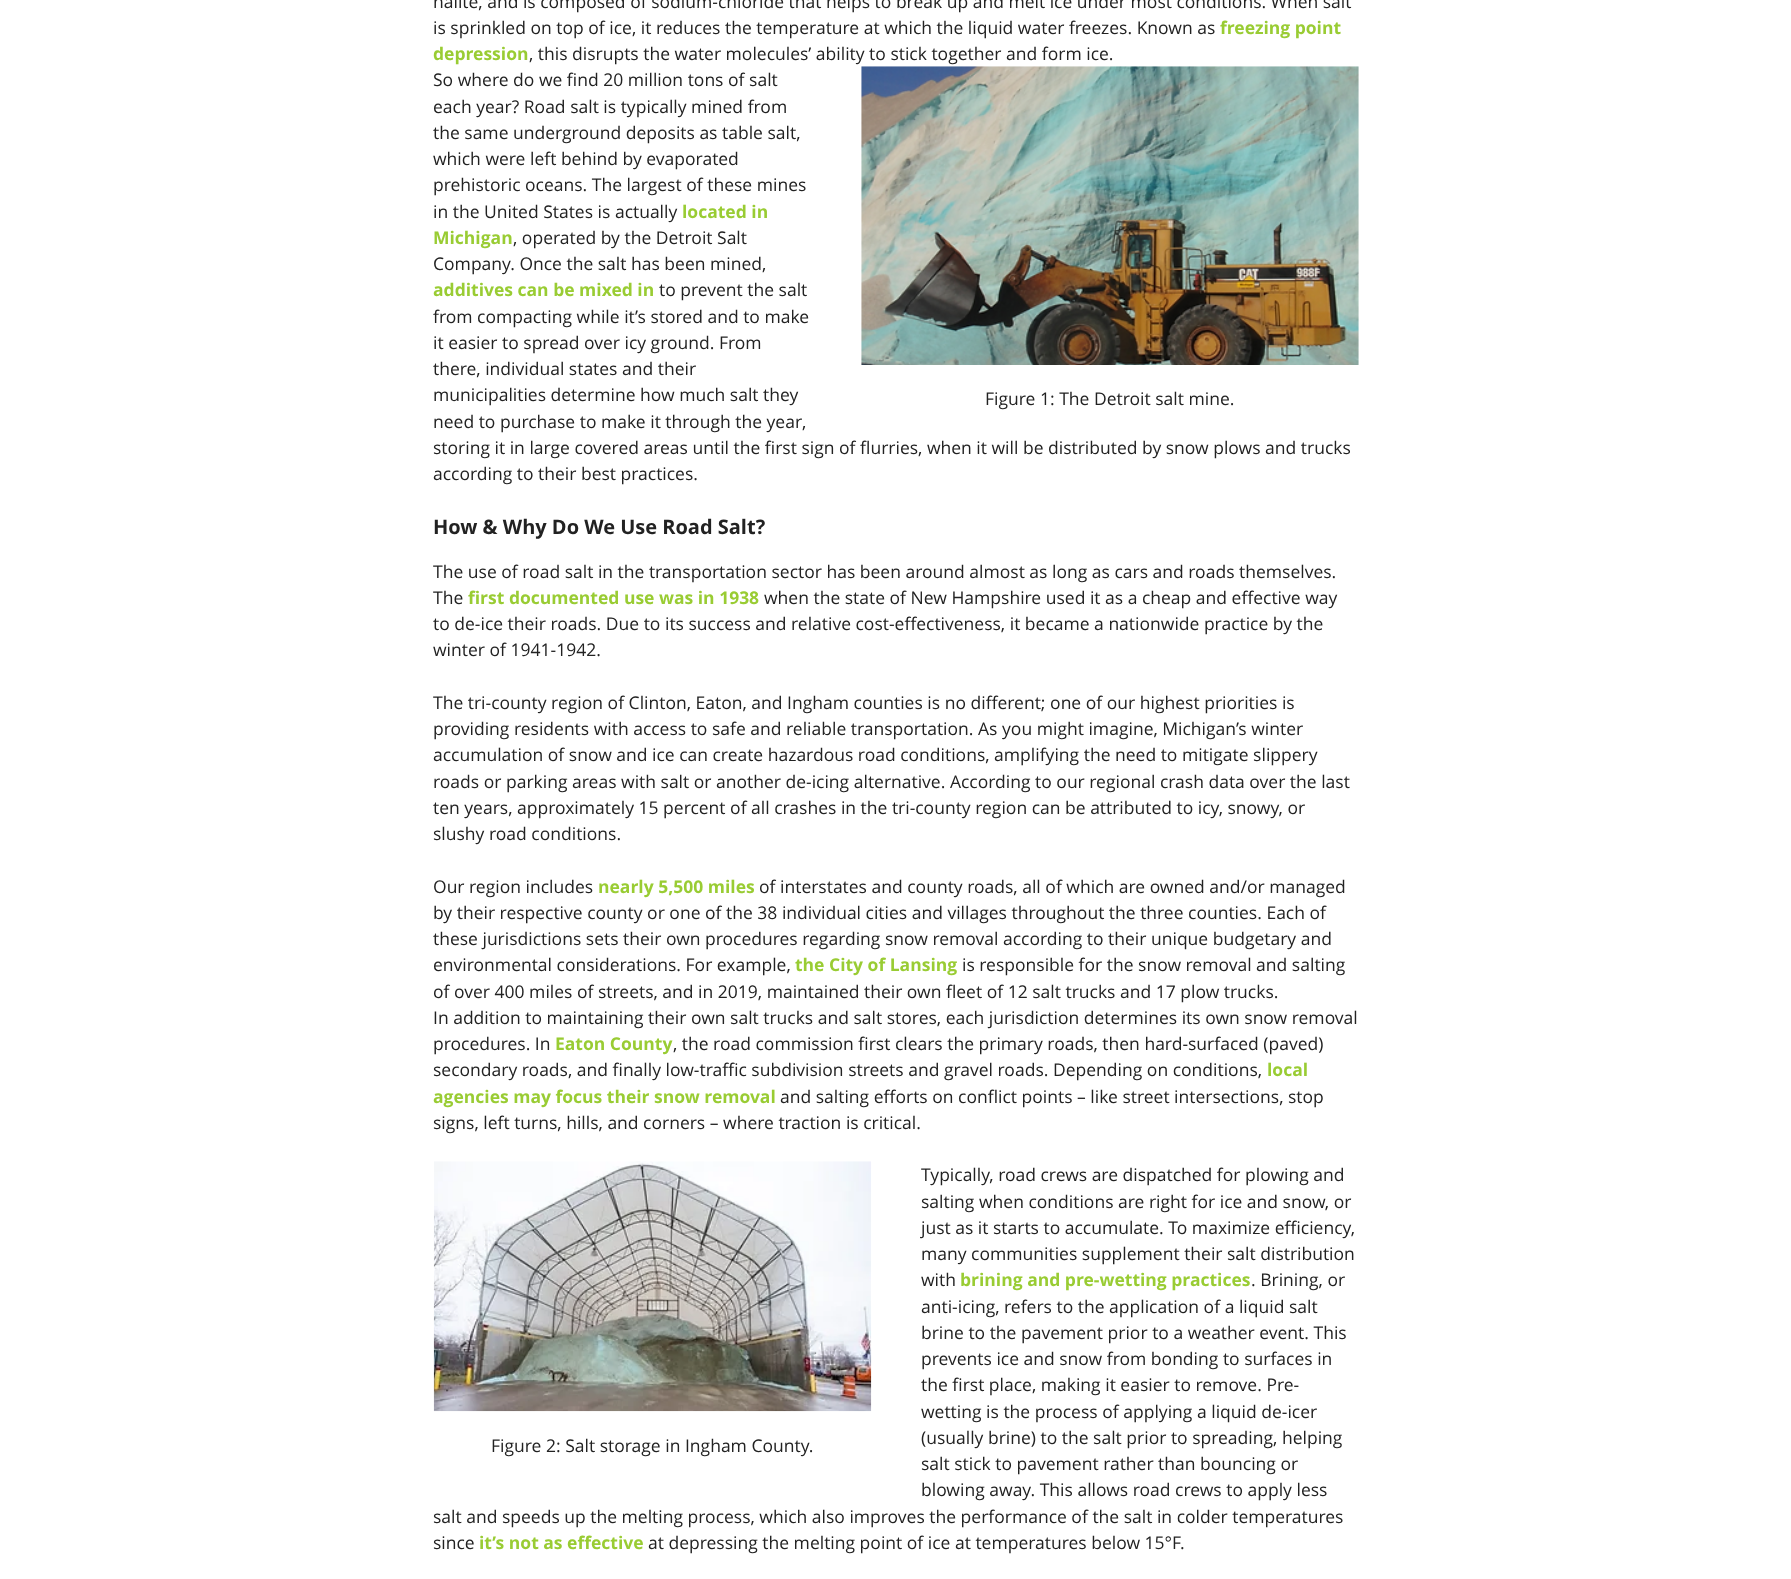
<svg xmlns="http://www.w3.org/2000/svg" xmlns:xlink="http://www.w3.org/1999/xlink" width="1791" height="1579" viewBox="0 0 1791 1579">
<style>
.cls-1{font:17.5px Open Sans;fill:#222222}
.cls-2{font:bold 17.5px Open Sans;fill:#99cc33}
.cls-3{font:bold 20px Open Sans;fill:#222222}
</style>
<rect width="100%" height="100%" fill="#ffffff"/>
<image xlink:href="image0.png" x="861" y="66" width="498" height="299"/>
<image xlink:href="image1.png" x="433" y="1161" width="439" height="251"/>
<text class="cls-1"><tspan x="433" y="8">halite, and is composed of sodium-chloride that helps to break up and melt ice under most conditions. When salt</tspan><tspan x="433" y="34">is sprinkled on top of ice, it reduces the temperature at which the liquid water freezes. Known as</tspan></text>
<text class="cls-2" x="1220" y="34">freezing point</text>
<text class="cls-2" x="433" y="60">depression</text>
<text class="cls-1" x="529" y="60">, this disrupts the water molecules’ ability to stick together and form ice.</text>
<text class="cls-1"><tspan x="433" y="86">So where do we find 20 million tons of salt</tspan><tspan x="433" y="113">each year? Road salt is typically mined from</tspan><tspan x="433" y="139">the same underground deposits as table salt,</tspan><tspan x="433" y="165">which were left behind by evaporated</tspan><tspan x="433" y="191">prehistoric oceans. The largest of these mines</tspan><tspan x="433" y="218">in the United States is actually</tspan></text>
<text class="cls-2" x="682" y="218">located in</text>
<text class="cls-2" x="433" y="244">Michigan</text>
<text class="cls-1" x="513" y="244">, operated by the Detroit Salt</text>
<text class="cls-1" x="433" y="270">Company. Once the salt has been mined,</text>
<text class="cls-2" x="433" y="296">additives can be mixed in</text>
<text class="cls-1" x="659" y="296">to prevent the salt</text>
<text class="cls-1"><tspan x="433" y="323">from compacting while it’s stored and to make</tspan><tspan x="433" y="349">it easier to spread over icy ground. From</tspan><tspan x="433" y="375">there, individual states and their</tspan><tspan x="433" y="401">municipalities determine how much salt they</tspan><tspan x="433" y="428">need to purchase to make it through the year,</tspan><tspan x="433" y="454">storing it in large covered areas until the first sign of flurries, when it will be distributed by snow plows and trucks</tspan><tspan x="433" y="480">according to their best practices.</tspan></text>
<text class="cls-1" x="985" y="405">Figure 1: The Detroit salt mine.</text>
<text class="cls-3" x="433" y="534">How &amp; Why Do We Use Road Salt?</text>
<text class="cls-1"><tspan x="433" y="578">The use of road salt in the transportation sector has been around almost as long as cars and roads themselves.</tspan><tspan x="433" y="604">The</tspan></text>
<text class="cls-2" x="468" y="604">first documented use was in 1938</text>
<text class="cls-1" x="764" y="604">when the state of New Hampshire used it as a cheap and effective way</text>
<text class="cls-1"><tspan x="433" y="630">to de-ice their roads. Due to its success and relative cost-effectiveness, it became a nationwide practice by the</tspan><tspan x="433" y="656">winter of 1941-1942.</tspan></text>
<text class="cls-1"><tspan x="433" y="709">The tri-county region of Clinton, Eaton, and Ingham counties is no different; one of our highest priorities is</tspan><tspan x="433" y="735">providing residents with access to safe and reliable transportation. As you might imagine, Michigan’s winter</tspan><tspan x="433" y="761">accumulation of snow and ice can create hazardous road conditions, amplifying the need to mitigate slippery</tspan><tspan x="433" y="788">roads or parking areas with salt or another de-icing alternative. According to our regional crash data over the last</tspan><tspan x="433" y="814">ten years, approximately 15 percent of all crashes in the tri-county region can be attributed to icy, snowy, or</tspan><tspan x="433" y="840">slushy road conditions.</tspan></text>
<text class="cls-1" x="433" y="893">Our region includes</text>
<text class="cls-2" x="598" y="893">nearly 5,500 miles</text>
<text class="cls-1" x="759" y="893">of interstates and county roads, all of which are owned and/or managed</text>
<text class="cls-1"><tspan x="433" y="919">by their respective county or one of the 38 individual cities and villages throughout the three counties. Each of</tspan><tspan x="433" y="945">these jurisdictions sets their own procedures regarding snow removal according to their unique budgetary and</tspan><tspan x="433" y="971">environmental considerations. For example,</tspan></text>
<text class="cls-2" x="795" y="971">the City of Lansing</text>
<text class="cls-1" x="962" y="971">is responsible for the snow removal and salting</text>
<text class="cls-1"><tspan x="433" y="998">of over 400 miles of streets, and in 2019, maintained their own fleet of 12 salt trucks and 17 plow trucks.</tspan><tspan x="433" y="1024">In addition to maintaining their own salt trucks and salt stores, each jurisdiction determines its own snow removal</tspan><tspan x="433" y="1050">procedures. In</tspan></text>
<text class="cls-2" x="555" y="1050">Eaton County</text>
<text class="cls-1" x="673" y="1050">, the road commission first clears the primary roads, then hard-surfaced (paved)</text>
<text class="cls-1" x="433" y="1076">secondary roads, and finally low-traffic subdivision streets and gravel roads. Depending on conditions,</text>
<text class="cls-2" x="1267" y="1076">local</text>
<text class="cls-2" x="433" y="1103">agencies may focus their snow removal</text>
<text class="cls-1" x="780" y="1103">and salting efforts on conflict points – like street intersections, stop</text>
<text class="cls-1" x="433" y="1129">signs, left turns, hills, and corners – where traction is critical.</text>
<text class="cls-1"><tspan x="921" y="1181">Typically, road crews are dispatched for plowing and</tspan><tspan x="921" y="1208">salting when conditions are right for ice and snow, or</tspan><tspan x="921" y="1234">just as it starts to accumulate. To maximize efficiency,</tspan><tspan x="921" y="1260">many communities supplement their salt distribution</tspan><tspan x="921" y="1286">with</tspan></text>
<text class="cls-2" x="960" y="1286">brining and pre-wetting practices</text>
<text class="cls-1" x="1251" y="1286">. Brining, or</text>
<text class="cls-1"><tspan x="921" y="1313">anti-icing, refers to the application of a liquid salt</tspan><tspan x="921" y="1339">brine to the pavement prior to a weather event. This</tspan><tspan x="921" y="1365">prevents ice and snow from bonding to surfaces in</tspan><tspan x="921" y="1391">the first place, making it easier to remove. Pre-</tspan><tspan x="921" y="1418">wetting is the process of applying a liquid de-icer</tspan><tspan x="921" y="1444">(usually brine) to the salt prior to spreading, helping</tspan><tspan x="921" y="1470">salt stick to pavement rather than bouncing or</tspan><tspan x="921" y="1496">blowing away. This allows road crews to apply less</tspan></text>
<text class="cls-1"><tspan x="433" y="1523">salt and speeds up the melting process, which also improves the performance of the salt in colder temperatures</tspan><tspan x="433" y="1549">since</tspan></text>
<text class="cls-2" x="479" y="1549">it’s not as effective</text>
<text class="cls-1" x="648" y="1549">at depressing the melting point of ice at temperatures below 15°F.</text>
<text class="cls-1" x="491" y="1452">Figure 2: Salt storage in Ingham County.</text>
</svg>
